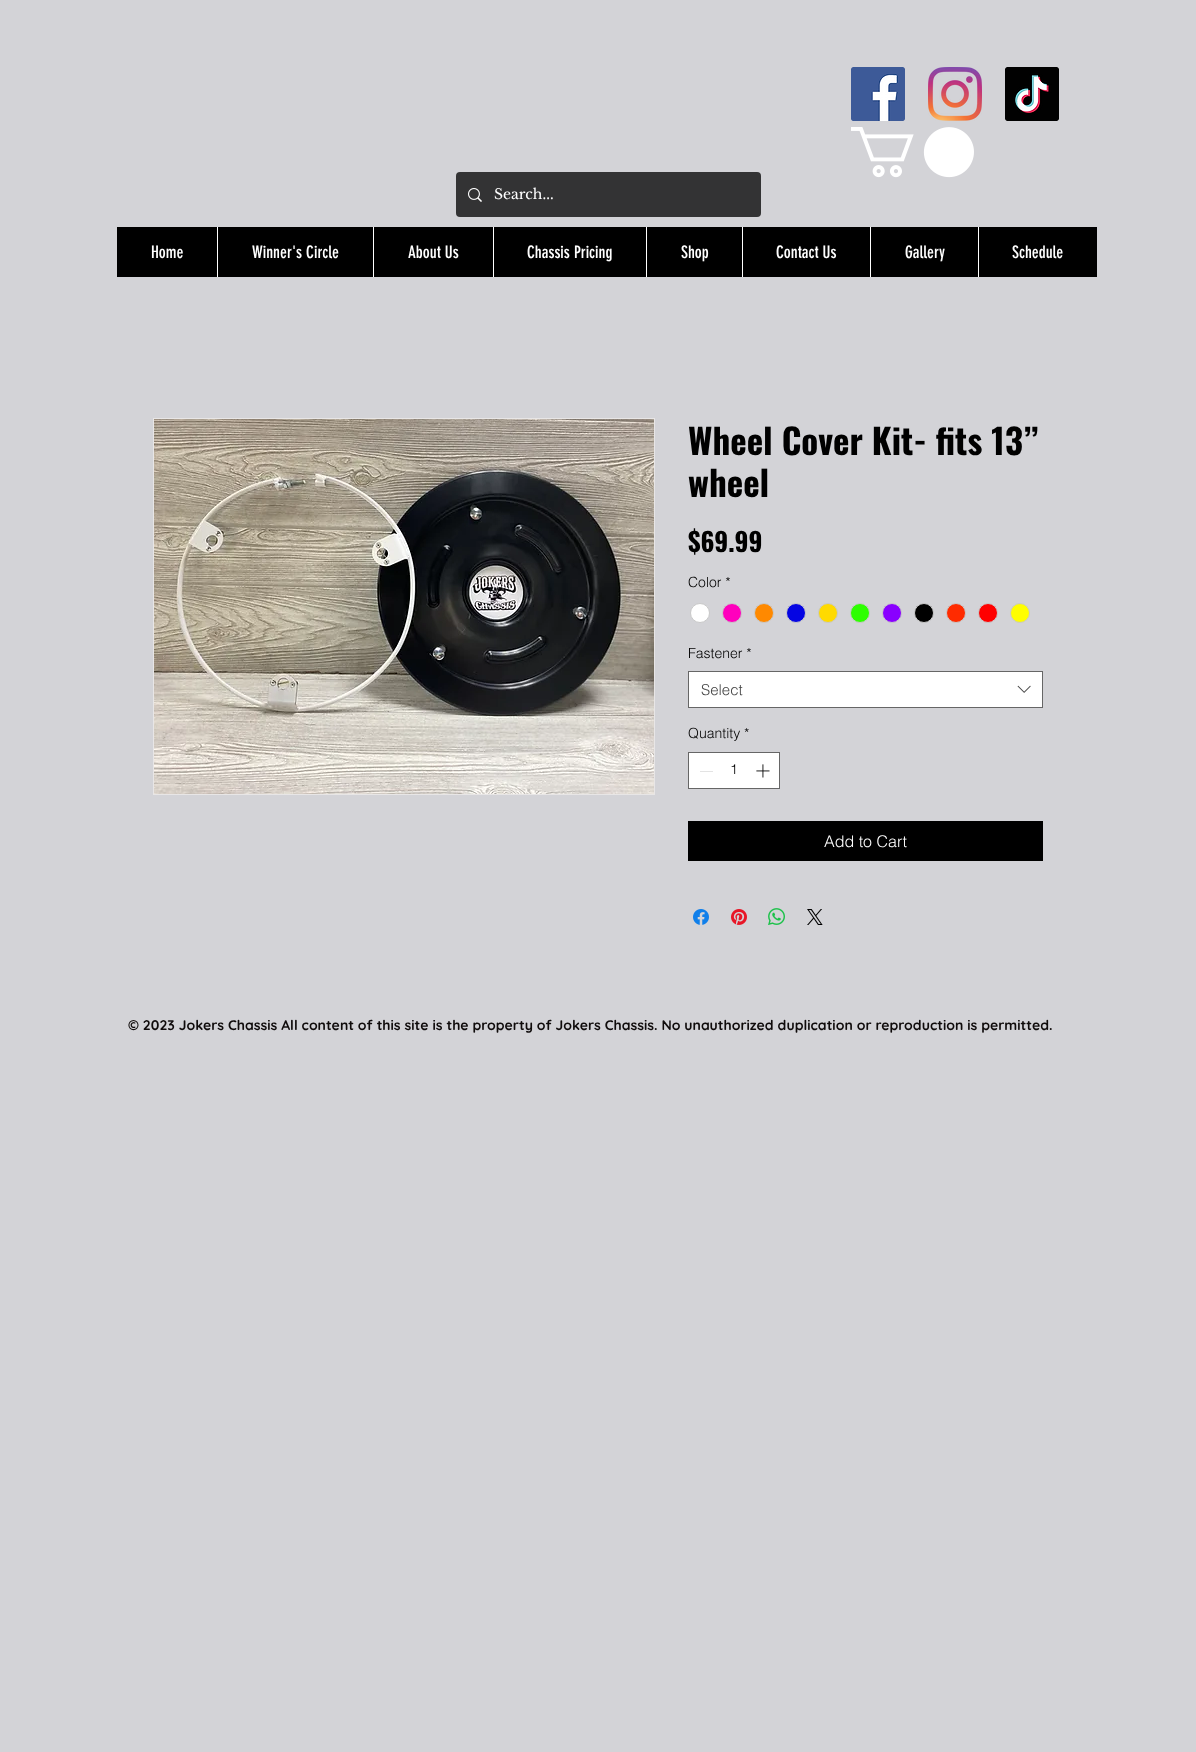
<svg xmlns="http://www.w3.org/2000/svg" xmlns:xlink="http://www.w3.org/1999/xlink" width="1196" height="1752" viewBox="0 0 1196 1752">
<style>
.cls-1{font:14px Libre Baskerville;fill:#ffffff}
.cls-2{font:17px 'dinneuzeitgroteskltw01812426';fill:#ffffff}
.cls-3{font:bold 35px Oswald;fill:#000000}
.cls-4{font:bold 26px Oswald;fill:#000000}
.cls-5{font:300 14px helvetica;fill:#000000}
.cls-6{font:300 15px helvetica;fill:#444444}
.cls-7{font:300 16px helvetica;fill:#ffffff}
.cls-8{font:bold 14px Quicksand;fill:#0f0b0b}
</style>
<rect width="100%" height="100%" fill="#d3d3d7"/>
<image xlink:href="image0.png" x="851" y="67" width="54" height="54"/>
<image xlink:href="image1.png" x="928" y="67" width="54" height="54"/>
<image xlink:href="image2.png" x="1005" y="67" width="54" height="54"/>
<image xlink:href="image3.png" x="851" y="127" width="123" height="51"/>
<rect fill="#333334" x="456" y="172" width="305" height="45" rx="4"/>
<image xlink:href="image4.png" x="468" y="188" width="14" height="14"/>
<rect fill="#000000" x="117" y="227" width="980" height="50"/>
<rect fill="#ffffff" x="217" y="227" width="1" height="50"/>
<rect fill="#ffffff" x="373" y="227" width="1" height="50"/>
<rect fill="#ffffff" x="493" y="227" width="1" height="50"/>
<rect fill="#ffffff" x="646" y="227" width="1" height="50"/>
<rect fill="#ffffff" x="742" y="227" width="1" height="50"/>
<rect fill="#ffffff" x="870" y="227" width="1" height="50"/>
<rect fill="#ffffff" x="978" y="227" width="1" height="50"/>
<rect fill="none" stroke="#e8e6e6" x="153.5" y="418.5" width="501" height="376"/>
<image xlink:href="image5.png" x="154" y="419" width="500" height="375"/>
<circle fill="#ffffff" stroke="#c9c9c9" cx="700" cy="613" r="9.5"/>
<circle fill="#ff00bd" stroke="#c9c9c9" cx="732" cy="613" r="9.5"/>
<circle fill="#ff8900" stroke="#c9c9c9" cx="764" cy="613" r="9.5"/>
<circle fill="#0505e3" stroke="#c9c9c9" cx="796" cy="613" r="9.5"/>
<circle fill="#ffda00" stroke="#c9c9c9" cx="828" cy="613" r="9.5"/>
<circle fill="#2dff00" stroke="#c9c9c9" cx="860" cy="613" r="9.5"/>
<circle fill="#8900ff" stroke="#c9c9c9" cx="892" cy="613" r="9.5"/>
<circle fill="#000000" stroke="#c9c9c9" cx="924" cy="613" r="9.5"/>
<circle fill="#ff2b00" stroke="#c9c9c9" cx="956" cy="613" r="9.5"/>
<circle fill="#ff0000" stroke="#c9c9c9" cx="988" cy="613" r="9.5"/>
<circle fill="#fffe00" stroke="#c9c9c9" cx="1020" cy="613" r="9.5"/>
<rect fill="#ffffff" stroke="#666666" x="688.5" y="671.5" width="354" height="36"/>
<image xlink:href="image6.png" x="1017" y="685" width="14" height="8"/>
<rect fill="#ffffff" stroke="#666666" x="688.5" y="752.5" width="91" height="36"/>
<rect fill="#e3e3e3" x="700" y="771" width="13" height="1"/>
<image xlink:href="image7.png" x="756" y="764" width="14" height="14"/>
<rect fill="#000000" x="688" y="821" width="355" height="40"/>
<image xlink:href="image8.png" x="693" y="909" width="16" height="16"/>
<image xlink:href="image9.png" x="731" y="909" width="16" height="16"/>
<image xlink:href="image10.png" x="768" y="908" width="17" height="17"/>
<image xlink:href="image11.png" x="807" y="909" width="16" height="16"/>
<text class="cls-1" x="494" y="199">Search...</text>
<text class="cls-2" x="151" y="258">Home</text>
<text class="cls-2" x="252" y="258">Winner's Circle</text>
<text class="cls-2" x="408" y="258">About Us</text>
<text class="cls-2" x="527" y="258">Chassis Pricing</text>
<text class="cls-2" x="681" y="258">Shop</text>
<text class="cls-2" x="776" y="258">Contact Us</text>
<text class="cls-2" x="905" y="258">Gallery</text>
<text class="cls-2" x="1012" y="258">Schedule</text>
<text class="cls-3"><tspan x="688" y="455">Wheel Cover Kit- fits 13”</tspan><tspan x="688" y="497">wheel</tspan></text>
<text class="cls-4" x="688" y="552">$69.99</text>
<text class="cls-5" x="688" y="587">Color *</text>
<text class="cls-5" x="688" y="658">Fastener *</text>
<text class="cls-6" x="701" y="695">Select</text>
<text class="cls-5" x="688" y="738">Quantity *</text>
<text class="cls-5" x="730" y="774">1</text>
<text class="cls-7" x="824" y="847">Add to Cart</text>
<text class="cls-8" x="128" y="1030">© 2023 Jokers Chassis All content of this site is the property of Jokers Chassis. No unauthorized duplication or reproduction is permitted.</text>
</svg>
